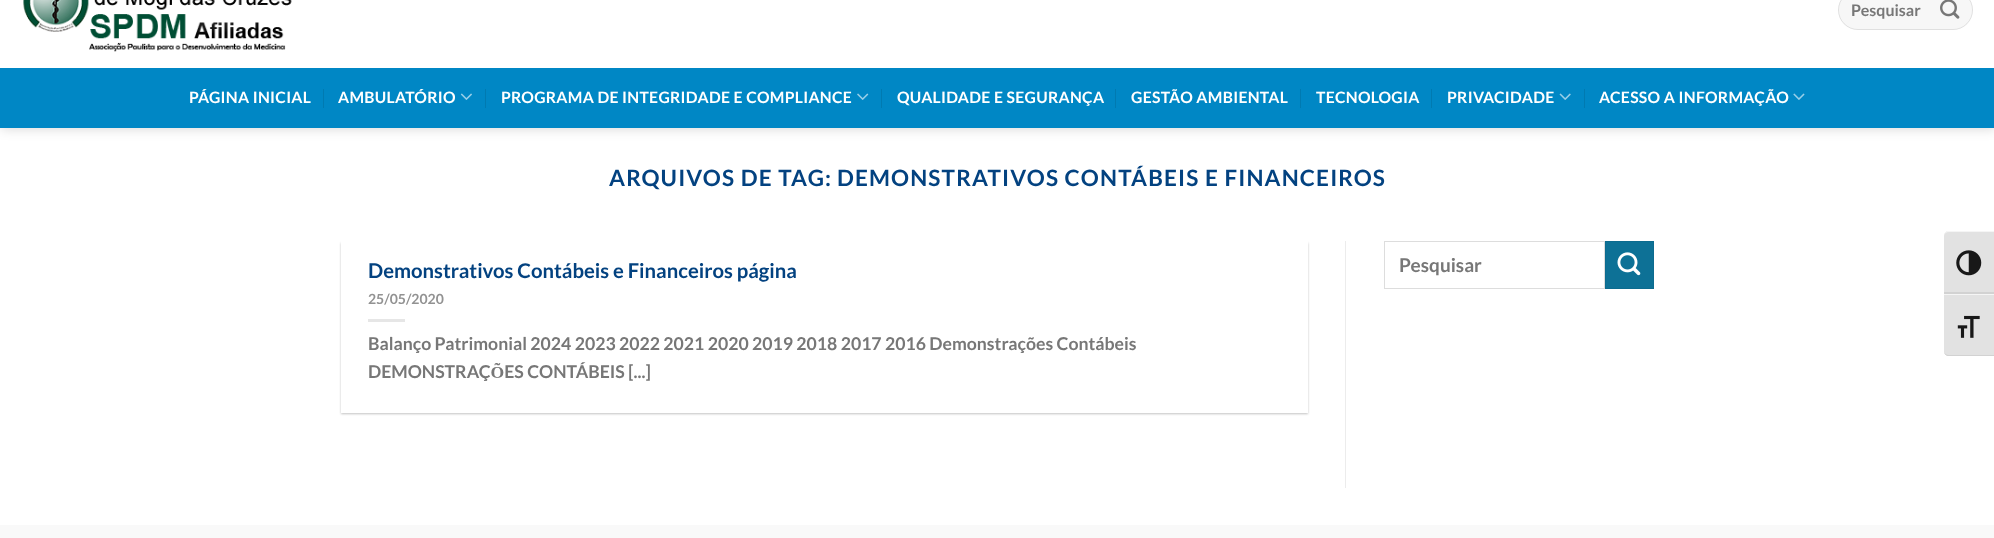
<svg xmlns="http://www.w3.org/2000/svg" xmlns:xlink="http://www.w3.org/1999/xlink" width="1994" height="538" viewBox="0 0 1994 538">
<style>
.cls-1{font:bold 16px Lato;fill:#777777}
.cls-2{font:bold 15.7px Lato;letter-spacing:0.3px;fill:#ffffff}
.cls-3{font:bold 22.5px Lato;letter-spacing:1.15px;fill:#034280}
.cls-4{font:bold 20.25px Lato;fill:#034280}
.cls-5{font:bold 14px Lato;fill:#929292}
.cls-6{font:bold 17.65px Lato;fill:#777777}
.cls-7{font:bold 19px Lato;fill:#777777}
</style>
<rect width="100%" height="100%" fill="#ffffff"/>
<rect fill="#000000" fill-opacity="0.15" filter="blur(6px)" x="1" y="-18" width="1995" height="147"/>
<rect fill="#ffffff" x="0" y="0" width="1994" height="68"/>
<image xlink:href="image0.png" x="23" y="0" width="269" height="52"/>
<rect fill="#f7f7f7" x="1838" y="-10" width="135" height="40" rx="20"/>
<rect fill="none" stroke="#000000" stroke-opacity="0.09" x="1838.5" y="-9.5" width="134" height="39" rx="19.5"/>
<image xlink:href="image1.png" x="1940" y="0" width="20" height="19"/>
<rect fill="#0087c5" x="0" y="68" width="1994" height="60"/>
<rect fill="#007ab1" x="323" y="89" width="1" height="19"/>
<image xlink:href="image2.png" x="460" y="93" width="12" height="7"/>
<rect fill="#007ab1" x="485" y="89" width="1" height="19"/>
<image xlink:href="image3.png" x="857" y="93" width="12" height="7"/>
<rect fill="#007ab1" x="881" y="89" width="1" height="19"/>
<rect fill="#007ab1" x="1115" y="89" width="1" height="19"/>
<rect fill="#007ab1" x="1300" y="89" width="1" height="19"/>
<rect fill="#007ab1" x="1431" y="89" width="1" height="19"/>
<image xlink:href="image4.png" x="1559" y="93" width="12" height="7"/>
<rect fill="#007ab1" x="1584" y="89" width="1" height="19"/>
<image xlink:href="image5.png" x="1793" y="93" width="12" height="7"/>
<rect fill="#000000" fill-opacity="0.24" filter="blur(1px)" x="341" y="243" width="967" height="171"/>
<rect fill="#ffffff" x="341" y="241" width="967" height="172"/>
<rect fill="#e6e6e6" x="368" y="319" width="37" height="3"/>
<rect fill="#ececec" x="1345" y="241" width="1" height="247"/>
<rect fill="none" stroke="#dddddd" x="1384.5" y="241.5" width="220" height="47"/>
<rect fill="#0d7196" stroke="#0c6b8f" x="1605.5" y="241.5" width="48" height="47"/>
<image xlink:href="image6.png" x="1617" y="252" width="24" height="24"/>
<rect fill="#f9f9f9" x="0" y="525" width="1994" height="13"/>
<path fill="#e2e2e2" d="M1949 231H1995V294H1944V236C1944 233 1946 231 1949 231Z"/>
<path fill="#f5f5f5" d="M1949 232H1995V231H1947C1945 232 1944 234 1944 236C1944 234 1946 232 1949 232Z"/>
<rect fill="#d2d2d2" x="1944" y="292" width="50" height="2"/>
<image xlink:href="image7.png" x="1956" y="250" width="26" height="26"/>
<path fill="#e2e2e2" d="M1944 294H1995V356H1949C1946 356 1944 354 1944 351Z"/>
<rect fill="#f5f5f5" x="1944" y="294" width="50" height="1"/>
<path fill="#d2d2d2" d="M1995 356V355H1949C1946 355 1944 353 1944 351C1944 354 1946 356 1949 356Z"/>
<image xlink:href="image8.png" x="1957" y="315" width="23" height="23"/>
<text class="cls-1" x="1851" y="16">Pesquisar</text>
<text class="cls-2" x="189" y="103">PÁGINA INICIAL</text>
<text class="cls-2" x="338" y="103">AMBULATÓRIO</text>
<text class="cls-2" x="501" y="103">PROGRAMA DE INTEGRIDADE E COMPLIANCE</text>
<text class="cls-2" x="897" y="103">QUALIDADE E SEGURANÇA</text>
<text class="cls-2" x="1131" y="103">GESTÃO AMBIENTAL</text>
<text class="cls-2" x="1316" y="103">TECNOLOGIA</text>
<text class="cls-2" x="1447" y="103">PRIVACIDADE</text>
<text class="cls-2" x="1599" y="103">ACESSO A INFORMAÇÃO</text>
<text class="cls-3" x="609" y="186">ARQUIVOS DE TAG:</text>
<text class="cls-3" x="837" y="186">DEMONSTRATIVOS CONTÁBEIS E FINANCEIROS</text>
<text class="cls-4" x="368" y="278">Demonstrativos Contábeis e Financeiros página</text>
<text class="cls-5" x="368" y="304">25/05/2020</text>
<text class="cls-6"><tspan x="368" y="350">Balanço Patrimonial 2024 2023 2022 2021 2020 2019 2018 2017 2016 Demonstrações Contábeis</tspan><tspan x="368" y="378">DEMONSTRAÇÕES CONTÁBEIS [...]</tspan></text>
<text class="cls-7" x="1399" y="272">Pesquisar</text>
</svg>
